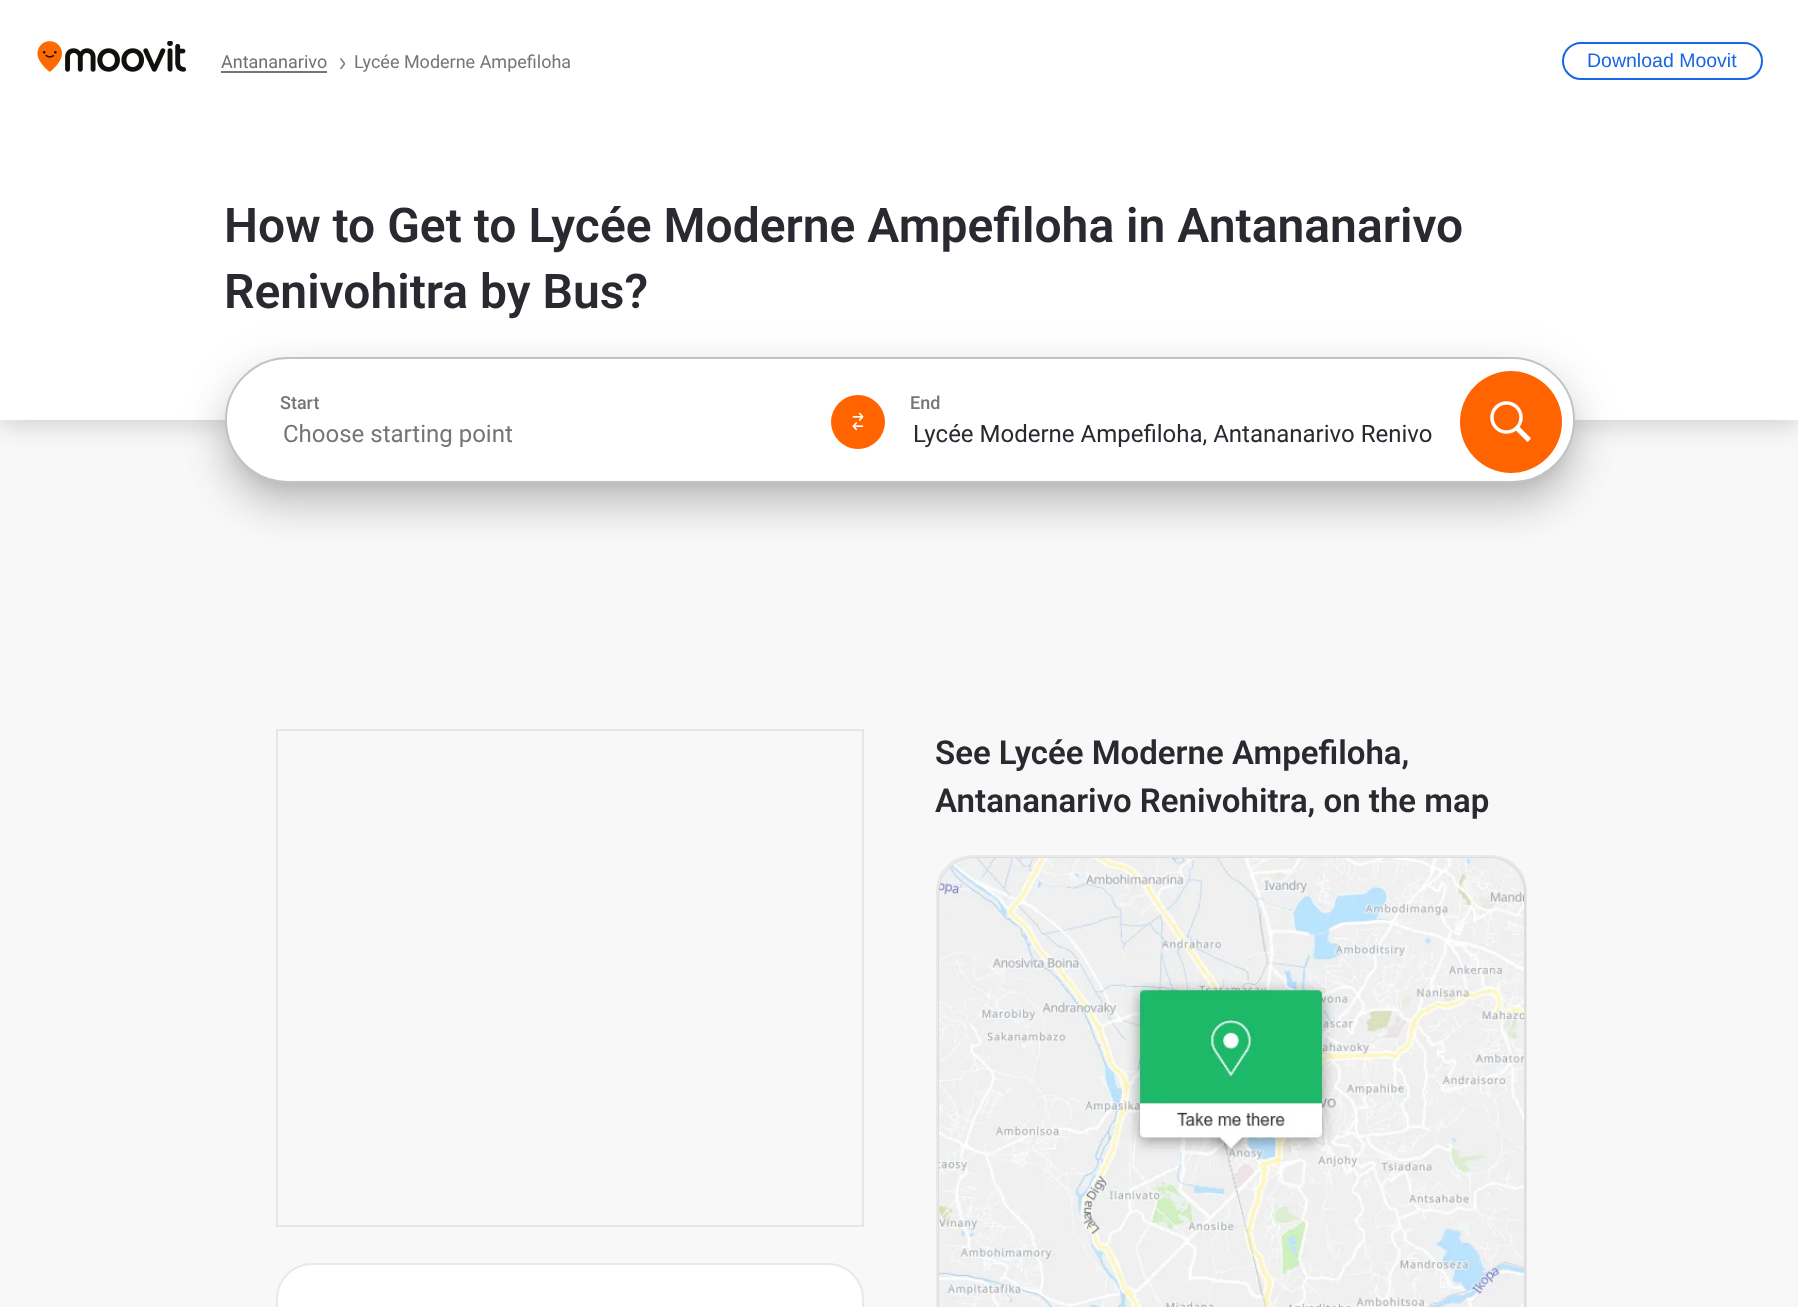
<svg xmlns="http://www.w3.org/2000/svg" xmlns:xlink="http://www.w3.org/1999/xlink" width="1798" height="1307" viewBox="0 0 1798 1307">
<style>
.cls-1{font:18px Roboto;fill:#6e7072}
.cls-2{font:18px Roboto;fill:#737578}
.cls-3{font:19.5px Liberation Sans;fill:#1a65e5}
.cls-4{font:600 48px Roboto;fill:#292a30}
.cls-5{font:500 18px Roboto;fill:#737578}
.cls-6{font:24px Roboto;fill:#737578}
.cls-7{font:24px Roboto;fill:#292a30}
.cls-8{font:600 33px Roboto;fill:#292a30}
</style>
<rect width="100%" height="100%" fill="#f8f8f8"/>
<rect fill="#000000" fill-opacity="0.15" filter="blur(12px)" x="0" y="126" width="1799" height="300"/>
<rect fill="#ffffff" x="0" y="0" width="1798" height="420"/>
<image xlink:href="image0.png" x="37" y="41" width="149" height="31"/>
<rect fill="#737578" x="221" y="71" width="106" height="2"/>
<image xlink:href="image1.png" x="339" y="58" width="6" height="11"/>
<rect fill="none" stroke="#1a65e5" stroke-width="2" x="1563" y="43" width="199" height="36" rx="18"/>
<rect fill="#000000" fill-opacity="0.14" filter="blur(18px)" x="222" y="378" width="1356" height="132" rx="66"/>
<rect fill="#000000" fill-opacity="0.06" filter="blur(22.5px)" x="218" y="359" width="1365" height="141" rx="70.5"/>
<rect fill="#000000" fill-opacity="0.1" filter="blur(7.5px)" x="233" y="377" width="1335" height="111" rx="55.5"/>
<rect fill="#ffffff" stroke="#bdc3c7" stroke-width="2" x="226" y="358" width="1348" height="124" rx="62"/>
<circle fill="#ff6400" cx="858" cy="422" r="27"/>
<image xlink:href="image2.png" x="852" y="412" width="12" height="19"/>
<circle fill="#ff6400" cx="1511" cy="422" r="51"/>
<image xlink:href="image3.png" x="1490" y="401" width="41" height="41"/>
<rect fill="none" stroke="#e6e6e6" stroke-width="2" x="277" y="730" width="586" height="496"/>
<rect fill="#ffffff" stroke="#e9e9ea" stroke-width="2" x="277" y="1264" width="586" height="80" rx="35"/>
<rect fill="#efefef" stroke="#e9e9ea" stroke-width="2" x="937" y="856" width="589" height="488" rx="35"/>
<rect fill="none" stroke="#dddddd" stroke-width="2" x="939" y="858" width="586" height="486" rx="35"/>
<image xlink:href="image4.png" x="939" y="858" width="585" height="449"/>
<text class="cls-1" x="221" y="68">Antananarivo</text>
<text class="cls-2" x="354" y="68">Lycée Moderne Ampefiloha</text>
<text class="cls-3" x="1587" y="67">Download Moovit</text>
<text class="cls-4"><tspan x="224" y="242">How to Get to Lycée Moderne Ampefiloha in Antananarivo</tspan><tspan x="224" y="308">Renivohitra by Bus?</tspan></text>
<text class="cls-5" x="280" y="409">Start</text>
<text class="cls-6" x="283" y="442">Choose starting point</text>
<text class="cls-5" x="910" y="409">End</text>
<text class="cls-7" x="913" y="442">Lycée Moderne Ampefiloha, Antananarivo Renivo</text>
<text class="cls-8"><tspan x="935" y="764">See Lycée Moderne Ampefiloha,</tspan><tspan x="935" y="812">Antananarivo Renivohitra, on the map</tspan></text>
</svg>
